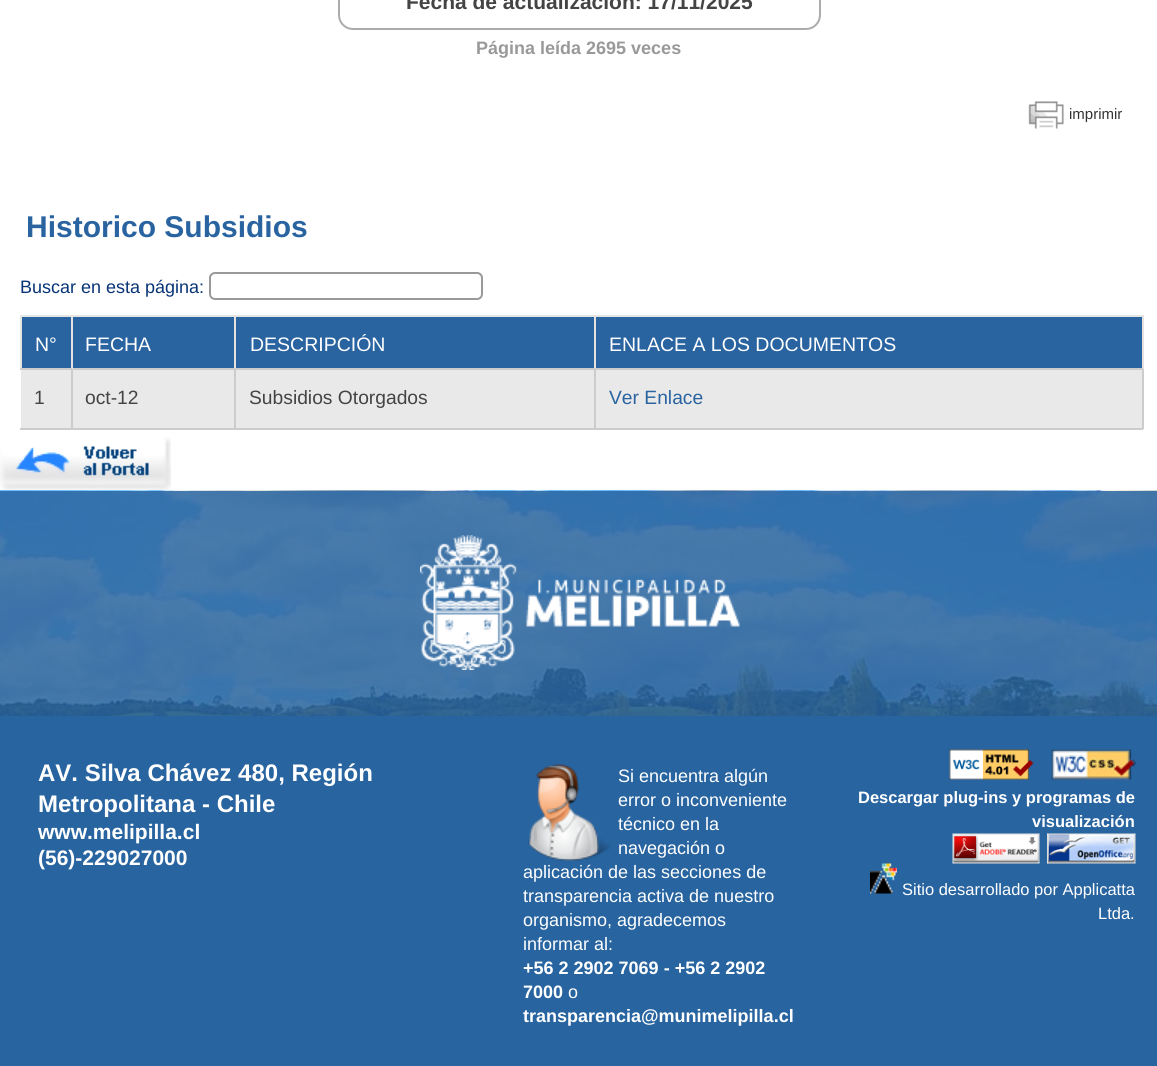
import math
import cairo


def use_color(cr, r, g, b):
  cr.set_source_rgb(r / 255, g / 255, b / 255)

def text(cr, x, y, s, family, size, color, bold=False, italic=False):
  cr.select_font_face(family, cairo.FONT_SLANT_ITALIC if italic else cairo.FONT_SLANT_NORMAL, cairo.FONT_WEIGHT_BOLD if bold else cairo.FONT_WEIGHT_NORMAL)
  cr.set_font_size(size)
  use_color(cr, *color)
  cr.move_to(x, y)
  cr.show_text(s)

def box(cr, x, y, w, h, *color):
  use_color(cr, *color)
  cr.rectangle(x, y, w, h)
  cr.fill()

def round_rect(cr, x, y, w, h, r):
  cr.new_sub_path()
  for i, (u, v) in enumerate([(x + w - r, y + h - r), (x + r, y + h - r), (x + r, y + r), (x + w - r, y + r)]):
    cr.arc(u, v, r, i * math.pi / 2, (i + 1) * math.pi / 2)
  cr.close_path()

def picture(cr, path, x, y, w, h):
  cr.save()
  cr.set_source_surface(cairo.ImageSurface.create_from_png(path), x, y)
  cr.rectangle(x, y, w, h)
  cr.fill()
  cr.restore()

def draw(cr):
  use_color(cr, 255, 255, 255)
  cr.paint()
  round_rect(cr, 339, -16, 481, 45, 14)
  use_color(cr, 172, 172, 172)
  cr.stroke()
  picture(cr, "img_01.png", 1028, 101, 36, 28)
  round_rect(cr, 210, 273, 272, 26, 5)
  use_color(cr, 153, 153, 153)
  cr.stroke()
  box(cr, 20, 315, 1123, 2, 229, 229, 228)
  box(cr, 20, 315, 2, 54, 229, 229, 228)
  box(cr, 22, 317, 49, 51, 41, 100, 161)
  box(cr, 20, 428, 1123, 2, 204, 204, 204)
  box(cr, 1142, 368, 2, 61, 204, 204, 204)
  box(cr, 1142, 315, 2, 54, 228, 225, 222)
  box(cr, 21, 370, 1121, 58, 233, 233, 233)
  box(cr, 594, 368, 2, 61, 204, 204, 204)
  box(cr, 594, 368, 549, 2, 204, 204, 204)
  box(cr, 594, 315, 2, 54, 228, 225, 222)
  box(cr, 234, 368, 2, 61, 204, 204, 204)
  box(cr, 234, 368, 362, 2, 204, 204, 204)
  box(cr, 234, 315, 2, 54, 228, 225, 222)
  box(cr, 71, 368, 2, 61, 204, 204, 204)
  box(cr, 71, 368, 165, 2, 204, 204, 204)
  box(cr, 71, 315, 2, 54, 228, 225, 222)
  box(cr, 20, 368, 52, 2, 204, 204, 204)
  box(cr, 73, 317, 161, 51, 41, 100, 161)
  box(cr, 236, 317, 358, 51, 41, 100, 161)
  box(cr, 596, 317, 546, 51, 41, 100, 161)
  picture(cr, "img_02.png", 0, 437, 171, 53)
  picture(cr, "img_03.png", 0, 490, 1157, 226)
  cr.set_source_rgba(0.157, 0.392, 0.627, 0.85)
  cr.rectangle(0, 491, 1157, 225)
  cr.fill()
  picture(cr, "img_04.png", 420, 535, 320, 135)
  box(cr, 0, 716, 1157, 350, 40, 100, 160)
  picture(cr, "img_05.png", 528, 764, 83, 97)
  picture(cr, "img_06.png", 949, 749, 85, 31)
  picture(cr, "img_07.png", 1051, 749, 85, 31)
  picture(cr, "img_08.png", 952, 833, 88, 31)
  picture(cr, "img_09.png", 1047, 833, 89, 31)
  picture(cr, "img_10.png", 870, 863, 27, 31)
  text(cr, 406, 9, "Fecha de actualización: 17/11/2025", "Liberation Sans", 21, (68, 68, 68), bold=True)
  text(cr, 476, 54, "Página leída 2695 veces", "Liberation Sans", 18, (153, 153, 153), bold=True)
  text(cr, 1069, 119, "imprimir", "Liberation Sans", 15, (51, 51, 51))
  text(cr, 26, 237, "Historico Subsidios", "Liberation Sans", 30, (41, 100, 161), bold=True)
  text(cr, 20, 293, "Buscar en esta página:", "Liberation Sans", 18, (8, 52, 118))
  text(cr, 35, 351, "N°", "Liberation Sans", 19.5, (255, 255, 255))
  text(cr, 85, 351, "FECHA", "Liberation Sans", 19.5, (255, 255, 255))
  text(cr, 250, 351, "DESCRIPCIÓN", "Liberation Sans", 19.5, (255, 255, 255))
  text(cr, 609, 351, "ENLACE A LOS DOCUMENTOS", "Liberation Sans", 19.5, (255, 255, 255))
  text(cr, 34, 404, "1", "Liberation Sans", 19.25, (68, 68, 68))
  text(cr, 85, 404, "oct-12", "Liberation Sans", 19.25, (68, 68, 68))
  text(cr, 249, 404, "Subsidios Otorgados", "Liberation Sans", 19.25, (68, 68, 68))
  text(cr, 609, 404, "Ver Enlace", "Liberation Sans", 19.25, (41, 100, 161))
  text(cr, 38, 781, "AV. Silva Chávez 480, Región", "Liberation Sans", 24, (255, 255, 255), bold=True)
  text(cr, 38, 812, "Metropolitana - Chile", "Liberation Sans", 24, (255, 255, 255), bold=True)
  text(cr, 38, 839, "www.melipilla.cl", "Liberation Sans", 21, (255, 255, 255), bold=True)
  text(cr, 38, 865, "(56)-229027000", "Liberation Sans", 21, (255, 255, 255), bold=True)
  text(cr, 618, 782, "Si encuentra algún", "Liberation Sans", 18, (255, 255, 255))
  text(cr, 618, 806, "error o inconveniente", "Liberation Sans", 18, (255, 255, 255))
  text(cr, 618, 830, "técnico en la", "Liberation Sans", 18, (255, 255, 255))
  text(cr, 618, 854, "navegación o", "Liberation Sans", 18, (255, 255, 255))
  text(cr, 523, 878, "aplicación de las secciones de", "Liberation Sans", 18, (255, 255, 255))
  text(cr, 523, 902, "transparencia activa de nuestro", "Liberation Sans", 18, (255, 255, 255))
  text(cr, 523, 926, "organismo, agradecemos", "Liberation Sans", 18, (255, 255, 255))
  text(cr, 523, 950, "informar al:", "Liberation Sans", 18, (255, 255, 255))
  text(cr, 523, 974, "+56 2 2902 7069 - +56 2 2902", "Liberation Sans", 18, (255, 255, 255), bold=True)
  text(cr, 523, 998, "7000", "Liberation Sans", 18, (255, 255, 255), bold=True)
  text(cr, 568, 998, "o", "Liberation Sans", 18, (255, 255, 255))
  text(cr, 523, 1022, "transparencia@munimelipilla.cl", "Liberation Sans", 18, (255, 255, 255), bold=True)
  text(cr, 858, 803, "Descargar plug-ins y programas de", "Liberation Sans", 16.5, (255, 255, 255), bold=True)
  text(cr, 1032, 827, "visualización", "Liberation Sans", 16.5, (255, 255, 255), bold=True)
  text(cr, 902, 895, "Sitio desarrollado por Applicatta", "Liberation Sans", 16.5, (255, 255, 255))
  text(cr, 1098, 919, "Ltda.", "Liberation Sans", 16.5, (255, 255, 255))


surface = cairo.ImageSurface(cairo.FORMAT_RGB24, 1157, 1066)
cr = cairo.Context(surface)
options = cairo.FontOptions()
options.set_hint_metrics(cairo.HINT_METRICS_OFF)
options.set_hint_style(cairo.HINT_STYLE_NONE)
cr.set_font_options(options)
cr.set_miter_limit(4)
draw(cr)
surface.write_to_png("out.png")
